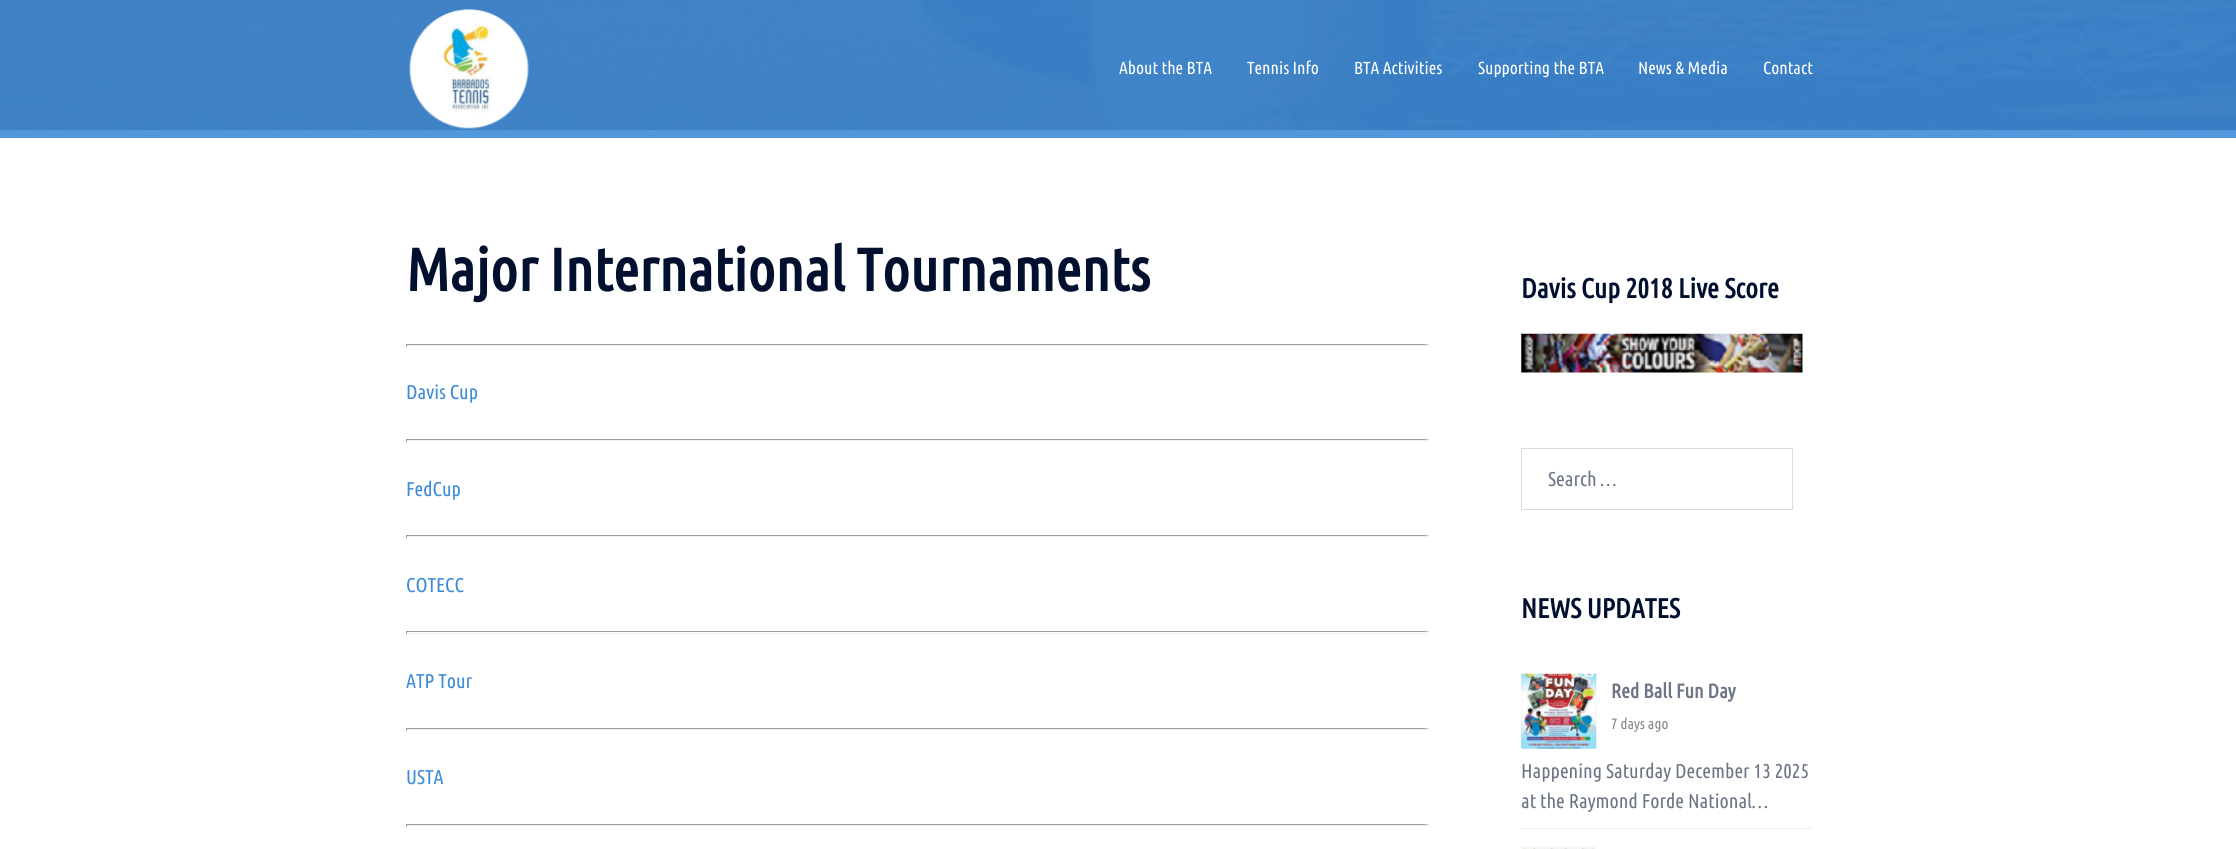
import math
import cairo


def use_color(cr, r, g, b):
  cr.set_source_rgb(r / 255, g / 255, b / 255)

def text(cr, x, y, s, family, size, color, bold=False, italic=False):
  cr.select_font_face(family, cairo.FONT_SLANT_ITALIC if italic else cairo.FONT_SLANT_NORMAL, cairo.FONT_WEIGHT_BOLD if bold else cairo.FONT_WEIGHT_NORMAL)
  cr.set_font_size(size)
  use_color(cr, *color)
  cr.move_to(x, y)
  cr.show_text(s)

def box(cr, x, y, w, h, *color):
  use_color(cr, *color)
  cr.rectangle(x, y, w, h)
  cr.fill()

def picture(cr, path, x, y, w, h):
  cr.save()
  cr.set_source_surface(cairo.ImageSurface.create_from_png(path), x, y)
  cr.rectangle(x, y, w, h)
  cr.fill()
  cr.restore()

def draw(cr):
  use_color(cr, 255, 255, 255)
  cr.paint()
  box(cr, 0, 130, 2236, 8, 81, 151, 220)
  picture(cr, "img_01.png", 0, 0, 2236, 130)
  picture(cr, "img_02.png", 409, 9, 120, 120)
  box(cr, 406, 344, 1022, 1, 159, 159, 159)
  box(cr, 1426, 344, 1, 3, 238, 238, 238)
  box(cr, 406, 345, 1022, 1, 238, 238, 238)
  box(cr, 406, 344, 1, 3, 159, 159, 159)
  box(cr, 406, 439, 1022, 1, 159, 159, 159)
  box(cr, 1426, 439, 1, 3, 238, 238, 238)
  box(cr, 406, 440, 1022, 1, 238, 238, 238)
  box(cr, 406, 439, 1, 3, 159, 159, 159)
  box(cr, 406, 535, 1022, 1, 159, 159, 159)
  box(cr, 1426, 535, 1, 3, 238, 238, 238)
  box(cr, 406, 536, 1022, 1, 238, 238, 238)
  box(cr, 406, 535, 1, 3, 159, 159, 159)
  box(cr, 406, 631, 1022, 1, 159, 159, 159)
  box(cr, 1426, 631, 1, 3, 238, 238, 238)
  box(cr, 406, 633, 1022, 1, 238, 238, 238)
  box(cr, 406, 631, 1, 3, 159, 159, 159)
  box(cr, 406, 728, 1022, 1, 159, 159, 159)
  box(cr, 1426, 728, 1, 3, 238, 238, 238)
  box(cr, 406, 729, 1022, 1, 238, 238, 238)
  box(cr, 406, 728, 1, 3, 159, 159, 159)
  box(cr, 406, 824, 1022, 1, 159, 159, 159)
  box(cr, 1426, 824, 1, 3, 238, 238, 238)
  box(cr, 406, 825, 1022, 1, 238, 238, 238)
  box(cr, 406, 824, 1, 3, 159, 159, 159)
  picture(cr, "img_03.png", 1521, 333, 282, 40)
  cr.rectangle(1521.5, 448.5, 271, 61)
  use_color(cr, 219, 219, 219)
  cr.set_line_width(1)
  cr.stroke()
  box(cr, 1521, 828, 292, 1, 240, 240, 240)
  picture(cr, "img_04.png", 1521, 673, 76, 76)
  picture(cr, "img_05.png", 1521, 847, 75, 2)
  text(cr, 1119, 74, "About the BTA", "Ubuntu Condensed", 17.5, (255, 255, 255))
  text(cr, 1247, 74, "Tennis Info", "Ubuntu Condensed", 17.5, (255, 255, 255))
  text(cr, 1354, 74, "BTA Activities", "Ubuntu Condensed", 17.5, (255, 255, 255))
  text(cr, 1478, 74, "Supporting the BTA", "Ubuntu Condensed", 17.5, (255, 255, 255))
  text(cr, 1638, 74, "News & Media", "Ubuntu Condensed", 17.5, (255, 255, 255))
  text(cr, 1763, 74, "Contact", "Ubuntu Condensed", 17.5, (255, 255, 255))
  text(cr, 406, 291, "Major International Tournaments", "Ubuntu Condensed", 60, (0, 16, 46), bold=True)
  text(cr, 406, 399, "Davis Cup", "Ubuntu Condensed", 20, (62, 139, 216))
  text(cr, 406, 496, "FedCup", "Ubuntu Condensed", 20, (62, 139, 216))
  text(cr, 406, 592, "COTECC", "Ubuntu Condensed", 20, (62, 139, 216))
  text(cr, 406, 688, "ATP Tour", "Ubuntu Condensed", 20, (62, 139, 216))
  text(cr, 406, 784, "USTA", "Ubuntu Condensed", 20, (62, 139, 216))
  text(cr, 1521, 298, "Davis Cup 2018 Live Score", "Ubuntu Condensed", 27.5, (0, 16, 46), bold=True)
  text(cr, 1548, 486, "Search …", "Ubuntu Condensed", 20, (109, 118, 133))
  text(cr, 1521, 618, "NEWS UPDATES", "Ubuntu Condensed", 27.5, (0, 16, 46), bold=True)
  text(cr, 1611, 698, "Red Ball Fun Day", "Ubuntu Condensed", 20, (109, 118, 133), bold=True)
  text(cr, 1611, 729, "7 days ago", "Ubuntu Condensed", 15, (136, 136, 136))
  text(cr, 1521, 778, "Happening Saturday December 13 2025", "Ubuntu Condensed", 20, (109, 118, 133))
  text(cr, 1521, 808, "at the Raymond Forde National…", "Ubuntu Condensed", 20, (109, 118, 133))


surface = cairo.ImageSurface(cairo.FORMAT_RGB24, 2236, 849)
cr = cairo.Context(surface)
options = cairo.FontOptions()
options.set_hint_metrics(cairo.HINT_METRICS_OFF)
options.set_hint_style(cairo.HINT_STYLE_NONE)
cr.set_font_options(options)
cr.set_miter_limit(4)
draw(cr)
surface.write_to_png("out.png")
